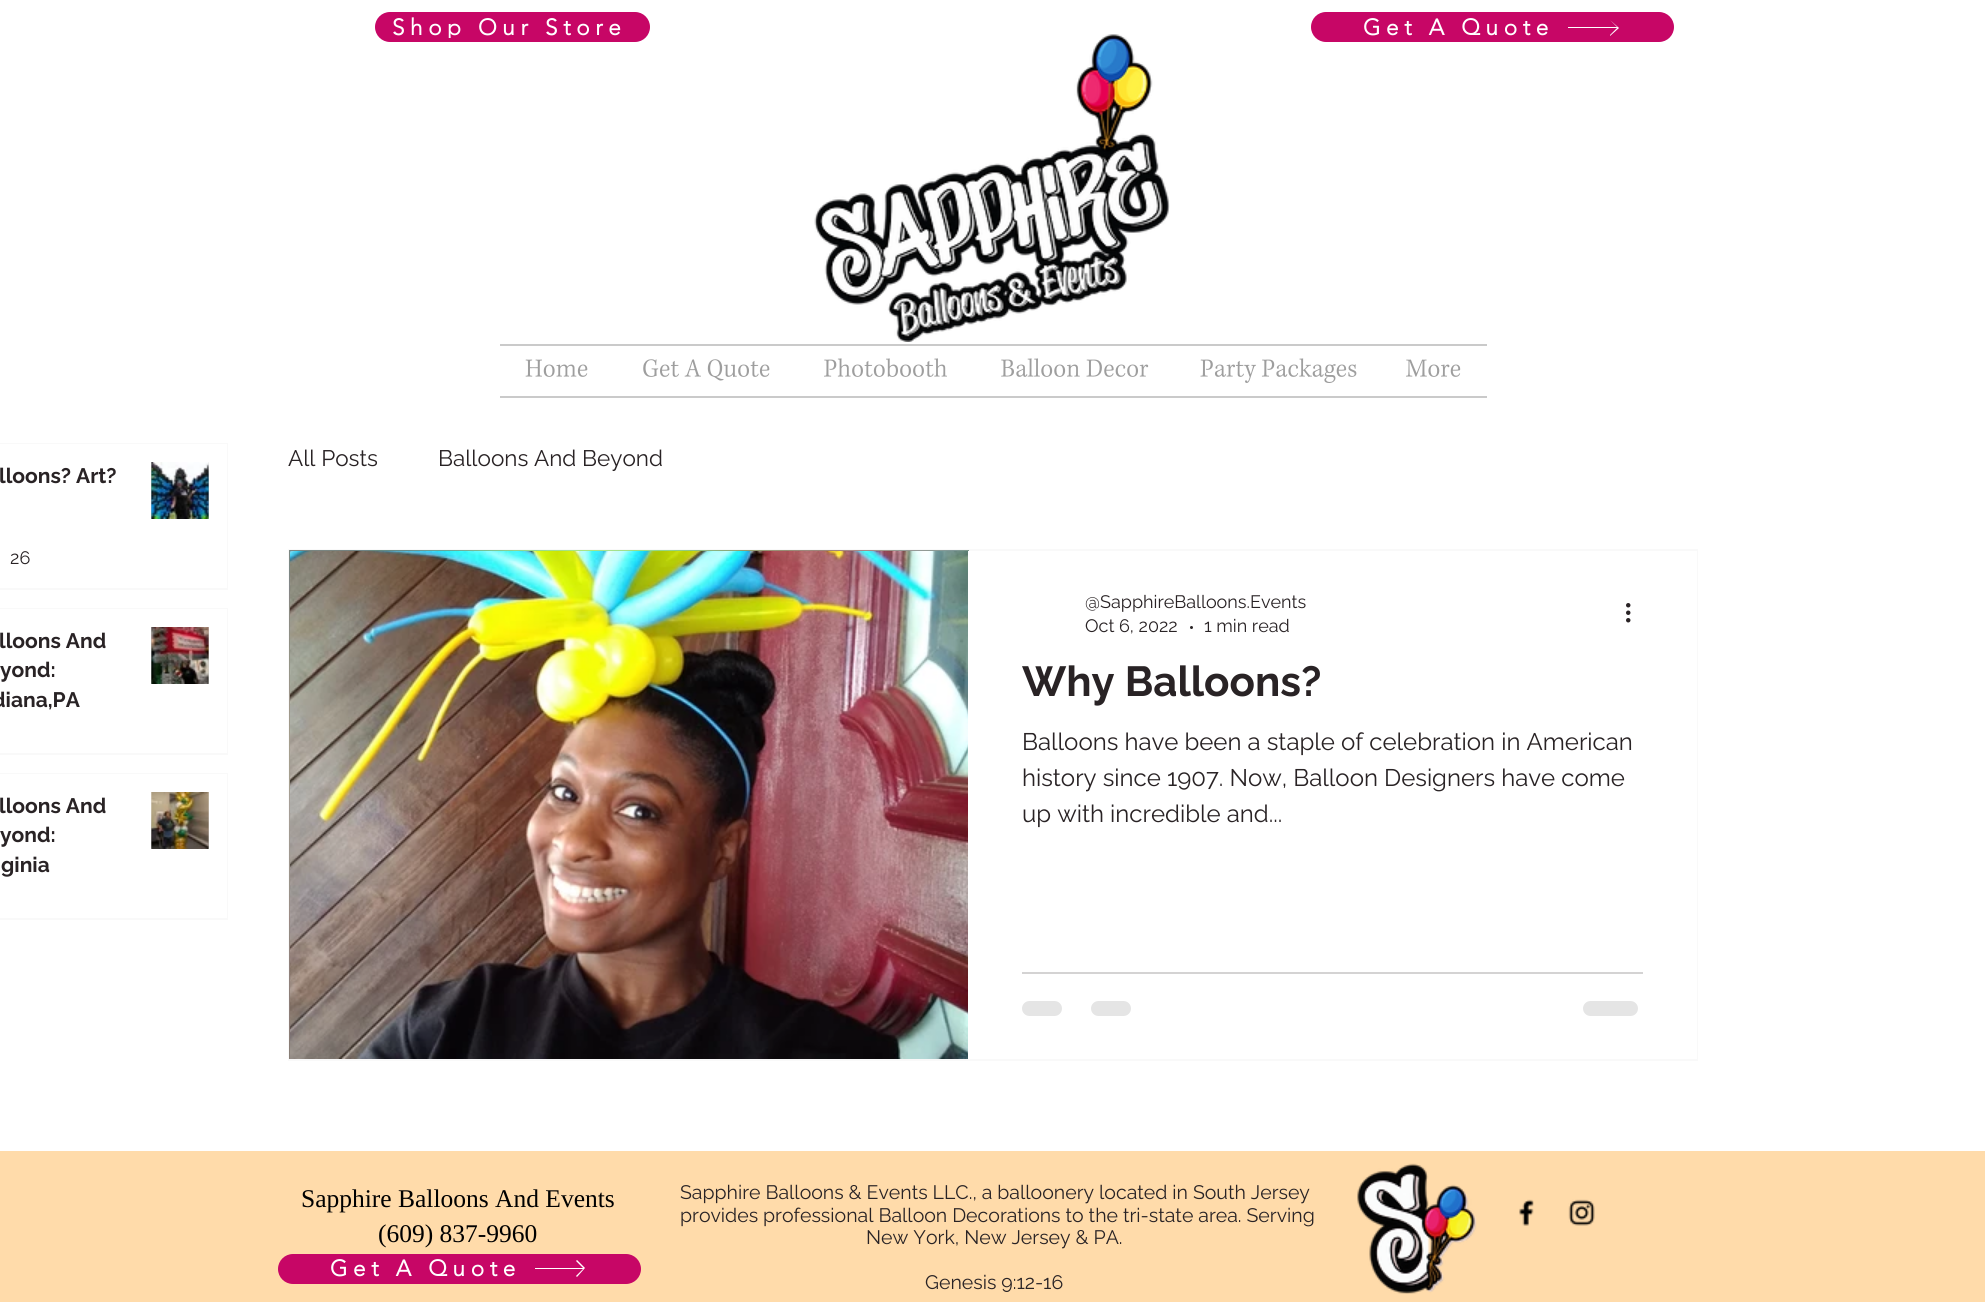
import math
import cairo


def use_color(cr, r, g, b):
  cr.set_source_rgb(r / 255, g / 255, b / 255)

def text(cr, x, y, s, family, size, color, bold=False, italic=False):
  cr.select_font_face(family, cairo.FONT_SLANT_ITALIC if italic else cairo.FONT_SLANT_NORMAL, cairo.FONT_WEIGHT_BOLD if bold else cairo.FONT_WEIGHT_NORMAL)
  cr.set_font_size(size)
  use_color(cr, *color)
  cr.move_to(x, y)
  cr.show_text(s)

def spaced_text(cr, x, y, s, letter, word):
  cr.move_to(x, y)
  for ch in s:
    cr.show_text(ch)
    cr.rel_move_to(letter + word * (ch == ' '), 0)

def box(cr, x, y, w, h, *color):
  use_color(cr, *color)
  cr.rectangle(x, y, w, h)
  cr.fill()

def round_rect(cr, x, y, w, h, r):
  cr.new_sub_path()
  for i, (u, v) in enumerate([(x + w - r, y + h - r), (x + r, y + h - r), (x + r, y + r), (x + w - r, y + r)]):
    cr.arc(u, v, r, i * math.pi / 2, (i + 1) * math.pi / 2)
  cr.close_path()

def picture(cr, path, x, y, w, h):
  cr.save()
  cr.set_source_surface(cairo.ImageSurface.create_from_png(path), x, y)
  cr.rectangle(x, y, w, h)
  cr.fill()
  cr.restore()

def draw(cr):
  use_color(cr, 255, 255, 255)
  cr.paint()
  use_color(cr, 199, 6, 102)
  round_rect(cr, 375, 12, 275, 30, 15)
  cr.fill()
  round_rect(cr, 1311, 12, 363, 30, 15)
  cr.fill()
  use_color(cr, 255, 255, 255)
  cr.new_path()
  cr.move_to(1610, 20)
  cr.line_to(1617, 27)
  cr.line_to(1568, 27)
  cr.line_to(1568, 28)
  cr.line_to(1617, 28)
  cr.line_to(1610, 35)
  cr.line_to(1610, 36)
  cr.line_to(1619, 28)
  cr.close_path()
  cr.fill()
  picture(cr, "img_01.png", 814, 34, 356, 308)
  box(cr, 500, 344, 987, 2, 202, 202, 202)
  box(cr, 500, 396, 987, 2, 202, 202, 202)
  picture(cr, "img_02.png", 525, 359, 63, 18)
  picture(cr, "img_03.png", 643, 359, 127, 22)
  picture(cr, "img_04.png", 824, 358, 123, 19)
  picture(cr, "img_05.png", 1001, 358, 148, 19)
  picture(cr, "img_06.png", 1200, 358, 157, 25)
  picture(cr, "img_07.png", 1406, 359, 55, 18)
  cr.rectangle(-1, 444, 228, 145)
  use_color(cr, 249, 249, 249)
  cr.stroke()
  box(cr, 0, 444, 227, 144, 255, 255, 255)
  picture(cr, "img_08.png", 151, 462, 58, 57)
  picture(cr, "img_09.png", 151, 462, 58, 57)
  cr.rectangle(-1, 609, 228, 145)
  use_color(cr, 249, 249, 249)
  cr.stroke()
  box(cr, 0, 609, 227, 144, 255, 255, 255)
  picture(cr, "img_10.png", 151, 627, 58, 57)
  picture(cr, "img_11.png", 151, 627, 58, 57)
  cr.rectangle(-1, 774, 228, 145)
  use_color(cr, 249, 249, 249)
  cr.stroke()
  box(cr, 0, 774, 227, 144, 255, 255, 255)
  picture(cr, "img_12.png", 151, 792, 58, 57)
  picture(cr, "img_13.png", 151, 792, 58, 57)
  cr.rectangle(289, 550, 1408, 510)
  use_color(cr, 249, 249, 249)
  cr.stroke()
  picture(cr, "img_14.png", 289, 550, 680, 509)
  picture(cr, "img_15.png", 290, 551, 678, 508)
  box(cr, 968, 551, 729, 508, 255, 255, 255)
  use_color(cr, 41, 35, 37)
  cr.arc(1191.5, 627.5, 1.5, 0, 2 * math.pi)
  cr.fill()
  picture(cr, "img_16.png", 1626, 603, 5, 20)
  box(cr, 1022, 972, 621, 2, 212, 211, 211)
  use_color(cr, 229, 229, 229)
  round_rect(cr, 1022, 1001, 40, 15, 7.5)
  cr.fill()
  round_rect(cr, 1091, 1001, 40, 15, 7.5)
  cr.fill()
  round_rect(cr, 1583, 1001, 55, 15, 7.5)
  cr.fill()
  box(cr, 0, 1151, 1985, 151, 255, 219, 170)
  picture(cr, "img_17.png", 1519, 1199, 15, 27)
  picture(cr, "img_18.png", 1568, 1199, 27, 27)
  picture(cr, "img_19.png", 1357, 1163, 120, 131)
  use_color(cr, 199, 6, 102)
  round_rect(cr, 278, 1254, 363, 30, 15)
  cr.fill()
  use_color(cr, 255, 255, 255)
  cr.new_path()
  cr.move_to(577, 1260)
  cr.line_to(576, 1261)
  cr.line_to(583, 1268)
  cr.line_to(535, 1268)
  cr.line_to(535, 1269)
  cr.line_to(583, 1269)
  cr.line_to(576, 1276)
  cr.line_to(577, 1277)
  cr.line_to(585, 1268)
  cr.close_path()
  cr.fill()
  cr.save()
  cr.rectangle(392, 17, 235, 21)
  cr.clip()
  cr.select_font_face("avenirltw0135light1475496", cairo.FONT_SLANT_NORMAL, cairo.FONT_WEIGHT_BOLD)
  cr.set_font_size(22.5)
  spaced_text(cr, 392, 35, "Shop Our Store", 5.6, 0)
  cr.restore()
  cr.select_font_face("avenirltw0135light1475496", cairo.FONT_SLANT_NORMAL, cairo.FONT_WEIGHT_BOLD)
  cr.set_font_size(22.5)
  spaced_text(cr, 1363, 35, "Get A Quote", 5.6, 0)
  text(cr, -1, 483, "lloons? Art?", "Raleway", 21, (41, 35, 37), bold=True)
  text(cr, 10, 564, "26", "Raleway", 18, (41, 35, 37))
  text(cr, -1, 648, "lloons And", "Raleway", 21, (41, 35, 37), bold=True)
  text(cr, 0, 677, "yond:", "Raleway", 21, (41, 35, 37), bold=True)
  text(cr, -8, 707, "diana,PA", "Raleway", 21, (41, 35, 37), bold=True)
  text(cr, -1, 813, "lloons And", "Raleway", 21, (41, 35, 37), bold=True)
  text(cr, 0, 842, "yond:", "Raleway", 21, (41, 35, 37), bold=True)
  text(cr, 1, 872, "ginia", "Raleway", 21, (41, 35, 37), bold=True)
  text(cr, 288, 466, "All Posts", "Raleway", 22.5, (41, 35, 37))
  text(cr, 438, 466, "Balloons And Beyond", "Raleway", 22.5, (41, 35, 37))
  text(cr, 1085, 608, "@SapphireBalloons.Events", "Raleway", 18, (41, 35, 37))
  text(cr, 1085, 632, "Oct 6, 2022", "Raleway", 18, (41, 35, 37))
  text(cr, 1204, 632, "1 min read", "Raleway", 18, (41, 35, 37))
  text(cr, 1022, 696, "Why Balloons?", "Raleway", 42, (41, 35, 37), bold=True)
  text(cr, 1022, 750, "Balloons have been a staple of celebration in American", "Raleway", 24, (41, 35, 37))
  text(cr, 1022, 786, "history since 1907. Now, Balloon Designers have come", "Raleway", 24, (41, 35, 37))
  text(cr, 1022, 822, "up with incredible and...", "Raleway", 24, (41, 35, 37))
  text(cr, 301, 1207, "Sapphire Balloons And Events", "Liberation Serif", 25.5, (0, 0, 0))
  text(cr, 378, 1242, "(609) 837-9960", "Liberation Serif", 25.5, (0, 0, 0))
  text(cr, 680, 1199, "Sapphire Balloons & Events LLC., a balloonery located in South Jersey", "Raleway", 19.5, (41, 35, 37))
  text(cr, 680, 1222, "provides professional Balloon Decorations to the tri-state area. Serving", "Raleway", 19.5, (41, 35, 37))
  text(cr, 866, 1244, "New York, New Jersey & PA.", "Raleway", 19.5, (41, 35, 37))
  text(cr, 925, 1289, "Genesis 9:12-16", "Raleway", 19.5, (41, 35, 37))
  cr.select_font_face("avenirltw0135light1475496", cairo.FONT_SLANT_NORMAL, cairo.FONT_WEIGHT_BOLD)
  cr.set_font_size(22.5)
  use_color(cr, 255, 255, 255)
  spaced_text(cr, 330, 1276, "Get A Quote", 5.6, 0)


surface = cairo.ImageSurface(cairo.FORMAT_RGB24, 1985, 1302)
cr = cairo.Context(surface)
options = cairo.FontOptions()
options.set_hint_metrics(cairo.HINT_METRICS_OFF)
options.set_hint_style(cairo.HINT_STYLE_NONE)
cr.set_font_options(options)
cr.set_miter_limit(4)
draw(cr)
surface.write_to_png("out.png")
